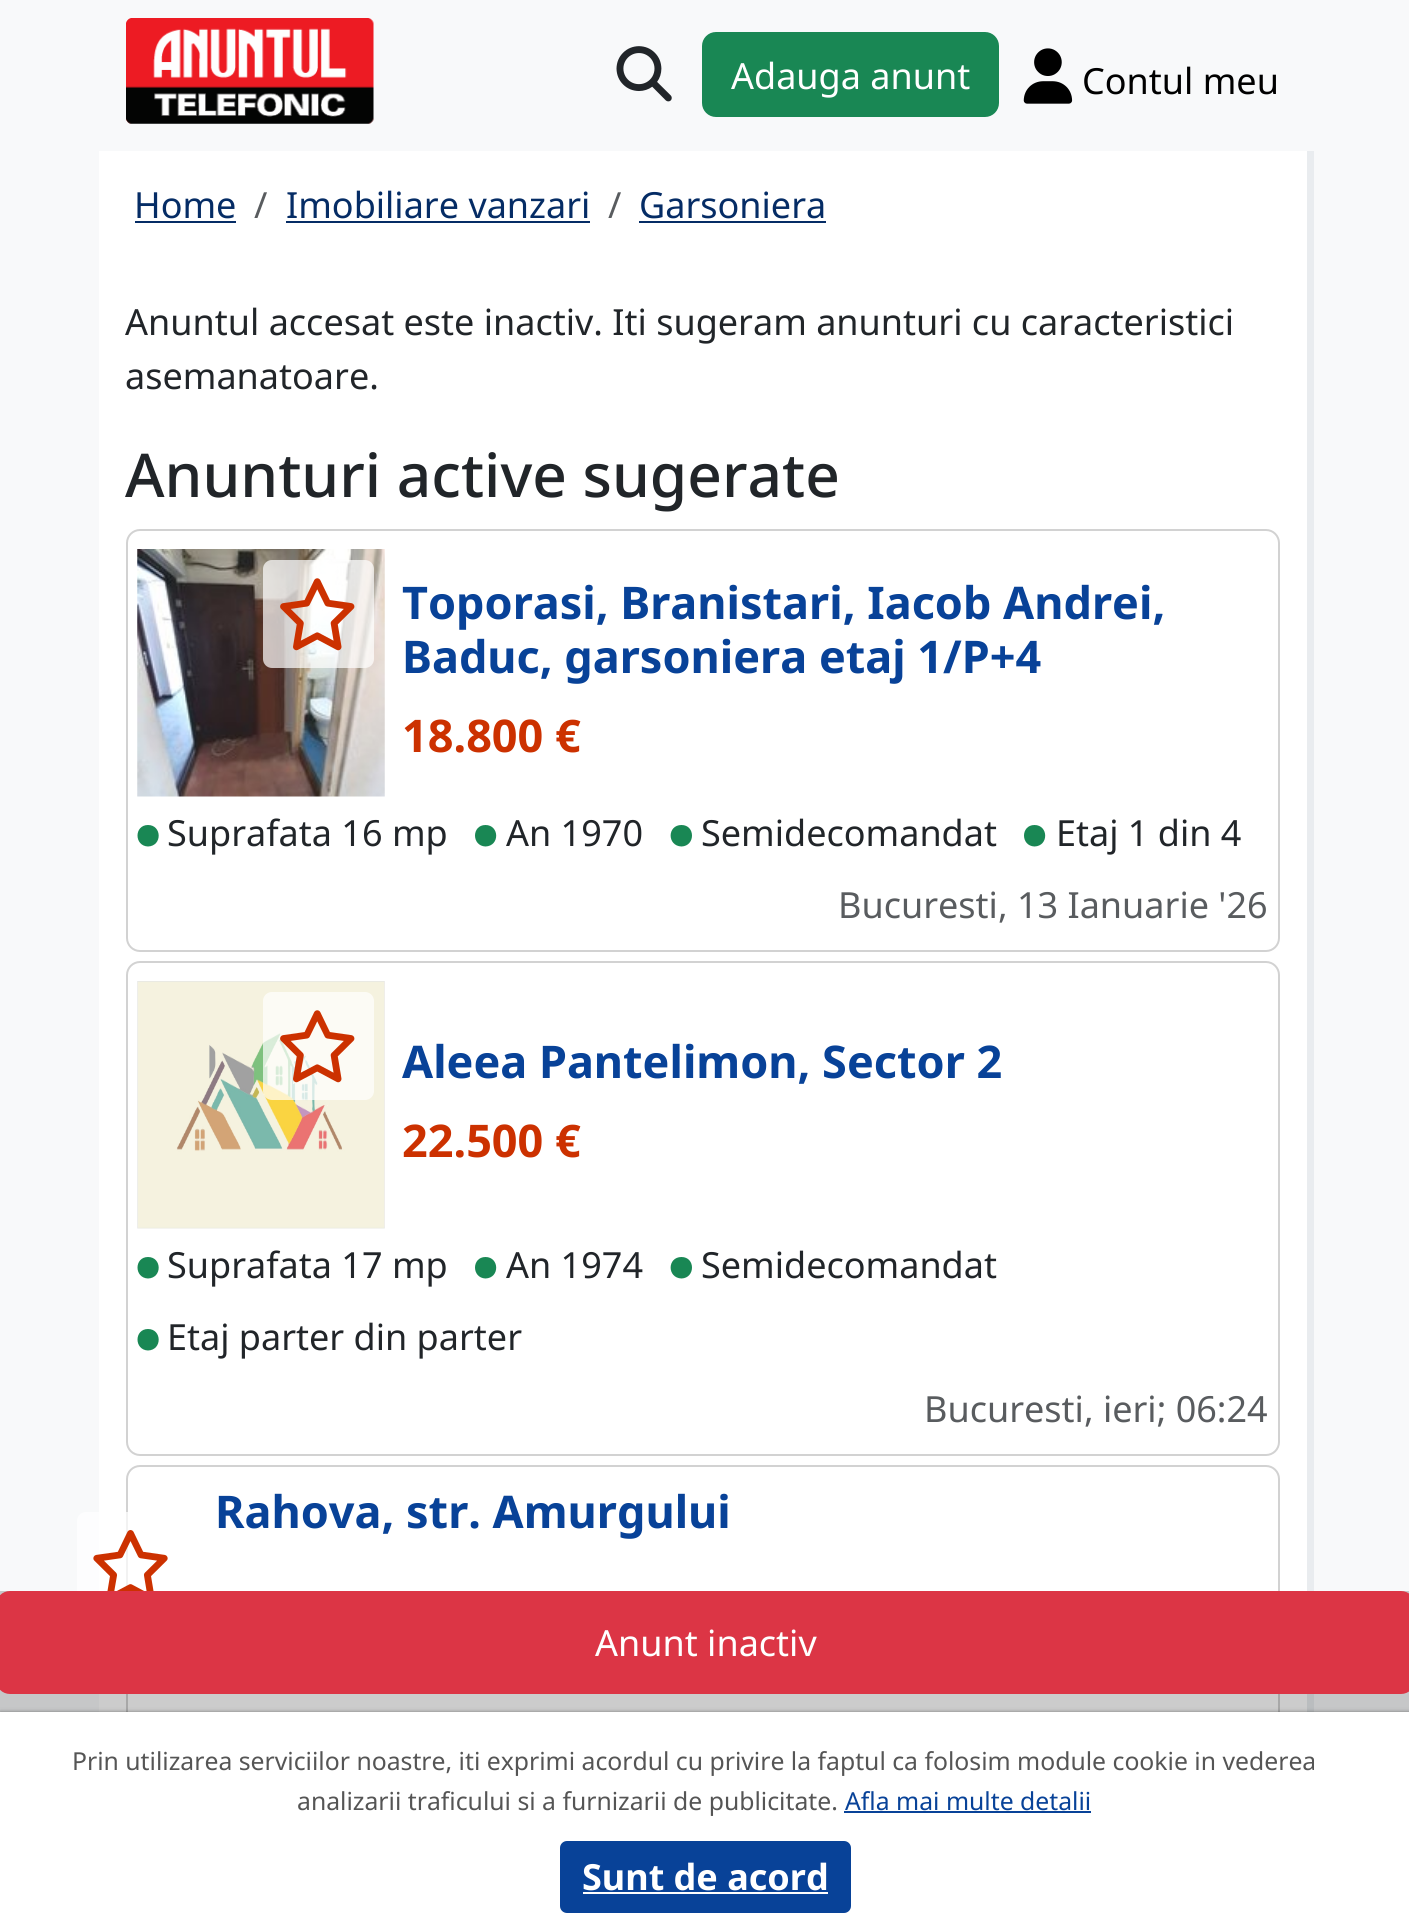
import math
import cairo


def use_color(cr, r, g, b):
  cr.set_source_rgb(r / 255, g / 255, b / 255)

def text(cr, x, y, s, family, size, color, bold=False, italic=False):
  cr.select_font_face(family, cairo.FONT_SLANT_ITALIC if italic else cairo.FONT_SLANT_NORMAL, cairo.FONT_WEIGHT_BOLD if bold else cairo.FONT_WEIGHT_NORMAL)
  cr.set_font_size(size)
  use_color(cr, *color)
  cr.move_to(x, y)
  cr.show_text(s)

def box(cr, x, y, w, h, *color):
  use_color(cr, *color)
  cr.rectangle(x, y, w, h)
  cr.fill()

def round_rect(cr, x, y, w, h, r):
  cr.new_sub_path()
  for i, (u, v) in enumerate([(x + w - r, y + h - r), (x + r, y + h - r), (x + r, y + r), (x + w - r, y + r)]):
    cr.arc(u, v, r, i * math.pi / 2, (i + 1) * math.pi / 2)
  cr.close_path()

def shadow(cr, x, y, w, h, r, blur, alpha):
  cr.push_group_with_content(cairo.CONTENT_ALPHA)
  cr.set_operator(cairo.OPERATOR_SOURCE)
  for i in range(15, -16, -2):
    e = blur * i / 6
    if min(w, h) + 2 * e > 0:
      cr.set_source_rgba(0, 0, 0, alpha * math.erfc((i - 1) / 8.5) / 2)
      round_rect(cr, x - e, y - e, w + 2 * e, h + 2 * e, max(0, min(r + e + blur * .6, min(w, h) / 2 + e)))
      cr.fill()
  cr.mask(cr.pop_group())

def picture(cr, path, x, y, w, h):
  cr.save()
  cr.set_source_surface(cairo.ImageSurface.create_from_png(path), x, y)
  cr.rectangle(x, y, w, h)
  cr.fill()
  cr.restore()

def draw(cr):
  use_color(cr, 248, 249, 250)
  cr.paint()
  picture(cr, "img_01.png", 126, 18, 248, 106)
  picture(cr, "img_02.png", 616, 46, 56, 56)
  use_color(cr, 25, 135, 84)
  round_rect(cr, 703, 33, 295, 83, 13)
  cr.fill_preserve()
  cr.stroke()
  picture(cr, "img_03.png", 1023, 48, 50, 56)
  box(cr, 99, 151, 1208, 1561, 255, 255, 255)
  box(cr, 1307, 151, 7, 1561, 233, 236, 239)
  box(cr, 135, 221, 101, 2, 5, 44, 101)
  box(cr, 286, 221, 304, 2, 5, 44, 101)
  box(cr, 639, 221, 187, 2, 5, 44, 101)
  round_rect(cr, 127, 530, 1152, 421, 13)
  use_color(cr, 210, 210, 210)
  cr.stroke()
  picture(cr, "img_04.png", 137, 549, 248, 248)
  cr.set_source_rgba(1, 1, 1, 0.7)
  round_rect(cr, 263, 560, 111, 108, 9)
  cr.fill()
  picture(cr, "img_05.png", 280, 578, 75, 73)
  use_color(cr, 25, 135, 84)
  cr.new_path()
  cr.move_to(148, 846.5)
  cr.curve_to(162.5, 846, 162, 825, 148, 825)
  cr.curve_to(134, 825, 134, 846, 148, 846.5)
  cr.close_path()
  cr.fill()
  cr.new_path()
  cr.move_to(485.5, 846.5)
  cr.curve_to(500, 846, 499.5, 825, 485.5, 825)
  cr.curve_to(471.5, 825, 471.5, 846, 485.5, 846.5)
  cr.close_path()
  cr.fill()
  cr.new_path()
  cr.move_to(681.5, 846.5)
  cr.curve_to(695.5, 846, 695.5, 825, 681.5, 825)
  cr.curve_to(667, 825, 667, 846, 681.5, 846.5)
  cr.close_path()
  cr.fill()
  cr.new_path()
  cr.move_to(1034.5, 846.5)
  cr.curve_to(1049, 846, 1048.5, 825, 1034.5, 825)
  cr.curve_to(1020.5, 825, 1020.5, 846, 1034.5, 846.5)
  cr.close_path()
  cr.fill()
  round_rect(cr, 127, 962, 1152, 493, 13)
  use_color(cr, 210, 210, 210)
  cr.stroke()
  picture(cr, "img_06.png", 137, 981, 248, 248)
  cr.set_source_rgba(1, 1, 1, 0.7)
  round_rect(cr, 263, 992, 111, 108, 9)
  cr.fill()
  picture(cr, "img_07.png", 280, 1010, 75, 73)
  use_color(cr, 25, 135, 84)
  cr.new_path()
  cr.move_to(148, 1278.5)
  cr.curve_to(162.5, 1278, 162, 1257, 148, 1257)
  cr.curve_to(134, 1257, 134, 1278, 148, 1278.5)
  cr.close_path()
  cr.fill()
  cr.new_path()
  cr.move_to(485.5, 1278.5)
  cr.curve_to(500, 1278, 499.5, 1257, 485.5, 1257)
  cr.curve_to(471.5, 1257, 471.5, 1278, 485.5, 1278.5)
  cr.close_path()
  cr.fill()
  cr.new_path()
  cr.move_to(681.5, 1278.5)
  cr.curve_to(695.5, 1278, 695.5, 1257, 681.5, 1257)
  cr.curve_to(667, 1257, 667, 1278, 681.5, 1278.5)
  cr.close_path()
  cr.fill()
  cr.new_path()
  cr.move_to(148, 1350.5)
  cr.curve_to(162.5, 1350, 162, 1329, 148, 1329)
  cr.curve_to(134, 1329, 134, 1350, 148, 1350.5)
  cr.close_path()
  cr.fill()
  round_rect(cr, 127, 1466, 1152, 313, 13)
  use_color(cr, 210, 210, 210)
  cr.stroke()
  cr.set_source_rgba(1, 1, 1, 0.7)
  round_rect(cr, 77, 1512, 108, 108, 9)
  cr.fill()
  picture(cr, "img_08.png", 93, 1530, 75, 61)
  cr.set_source_rgba(0, 0, 0, 0.2)
  cr.rectangle(0, 1591, 1409, 121)
  cr.fill()
  use_color(cr, 220, 53, 69)
  round_rect(cr, -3, 1592, 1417, 101, 13)
  cr.fill_preserve()
  cr.stroke()
  use_color(cr, 0, 0, 0)
  shadow(cr, 0, 1712, 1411, 205, 0, 2, 0.4)
  box(cr, 0, 1712, 1409, 214, 255, 255, 255)
  box(cr, 844, 1811, 247, 2, 8, 66, 152)
  round_rect(cr, 560, 1841, 291, 72, 7)
  cr.fill()
  box(cr, 583, 1892, 245, 2, 255, 255, 255)
  text(cr, 731, 89, "Adauga anunt", "Noto Sans", 36, (255, 255, 255))
  text(cr, 1082, 94, "Contul meu", "Noto Sans", 36, (0, 0, 0))
  text(cr, 134, 218, "Home", "Noto Sans", 36, (5, 44, 101))
  text(cr, 254, 218, "/", "Noto Sans", 36, (89, 92, 95))
  text(cr, 286, 218, "Imobiliare vanzari", "Noto Sans", 36, (5, 44, 101))
  text(cr, 608, 218, "/", "Noto Sans", 36, (89, 92, 95))
  text(cr, 639, 218, "Garsoniera", "Noto Sans", 36, (5, 44, 101))
  text(cr, 125, 335, "Anuntul accesat este inactiv. Iti sugeram anunturi cu caracteristici", "Noto Sans", 36, (33, 37, 41))
  text(cr, 125, 389, "asemanatoare.", "Noto Sans", 36, (33, 37, 41))
  text(cr, 125, 497, "Anunturi active sugerate", "Noto Sans Medium", 60.4, (33, 37, 41))
  text(cr, 402, 619, "Toporasi, Branistari, Iacob Andrei,", "Noto Sans", 45, (8, 66, 152), bold=True)
  text(cr, 402, 673, "Baduc, garsoniera etaj 1/P+4", "Noto Sans", 45, (8, 66, 152), bold=True)
  text(cr, 402, 752, "18.800 €", "Noto Sans", 45, (204, 49, 0), bold=True)
  text(cr, 167, 846, "Suprafata 16 mp", "Noto Sans", 36, (33, 37, 41))
  text(cr, 506, 846, "An 1970", "Noto Sans", 36, (33, 37, 41))
  text(cr, 701, 846, "Semidecomandat", "Noto Sans", 36, (33, 37, 41))
  text(cr, 1056, 846, "Etaj 1 din 4", "Noto Sans", 36, (33, 37, 41))
  text(cr, 838, 918, "Bucuresti, 13 Ianuarie '26", "Noto Sans", 36, (89, 92, 95))
  text(cr, 402, 1078, "Aleea Pantelimon, Sector 2", "Noto Sans", 45, (8, 66, 152), bold=True)
  text(cr, 402, 1157, "22.500 €", "Noto Sans", 45, (204, 49, 0), bold=True)
  text(cr, 167, 1278, "Suprafata 17 mp", "Noto Sans", 36, (33, 37, 41))
  text(cr, 506, 1278, "An 1974", "Noto Sans", 36, (33, 37, 41))
  text(cr, 701, 1278, "Semidecomandat", "Noto Sans", 36, (33, 37, 41))
  text(cr, 167, 1350, "Etaj parter din parter", "Noto Sans", 36, (33, 37, 41))
  text(cr, 924, 1422, "Bucuresti, ieri; 06:24", "Noto Sans", 36, (89, 92, 95))
  text(cr, 215, 1528, "Rahova, str. Amurgului", "Noto Sans", 45, (8, 66, 152), bold=True)
  text(cr, 595, 1656, "Anunt inactiv", "Noto Sans", 36, (255, 255, 255))
  text(cr, 72, 1770, "Prin utilizarea serviciilor noastre, iti exprimi acordul cu privire la faptul ca folosim module cookie in vederea", "Noto Sans", 24.75, (85, 85, 85))
  text(cr, 297, 1810, "analizarii traficului si a furnizarii de publicitate.", "Noto Sans", 24.75, (85, 85, 85))
  text(cr, 845, 1810, "Afla mai multe detalii", "Noto Sans", 24.75, (8, 66, 152))
  text(cr, 582, 1890, "Sunt de acord", "Noto Sans", 36, (255, 255, 255), bold=True)


surface = cairo.ImageSurface(cairo.FORMAT_RGB24, 1409, 1926)
cr = cairo.Context(surface)
options = cairo.FontOptions()
options.set_hint_metrics(cairo.HINT_METRICS_OFF)
options.set_hint_style(cairo.HINT_STYLE_NONE)
cr.set_font_options(options)
cr.set_miter_limit(4)
draw(cr)
surface.write_to_png("out.png")
